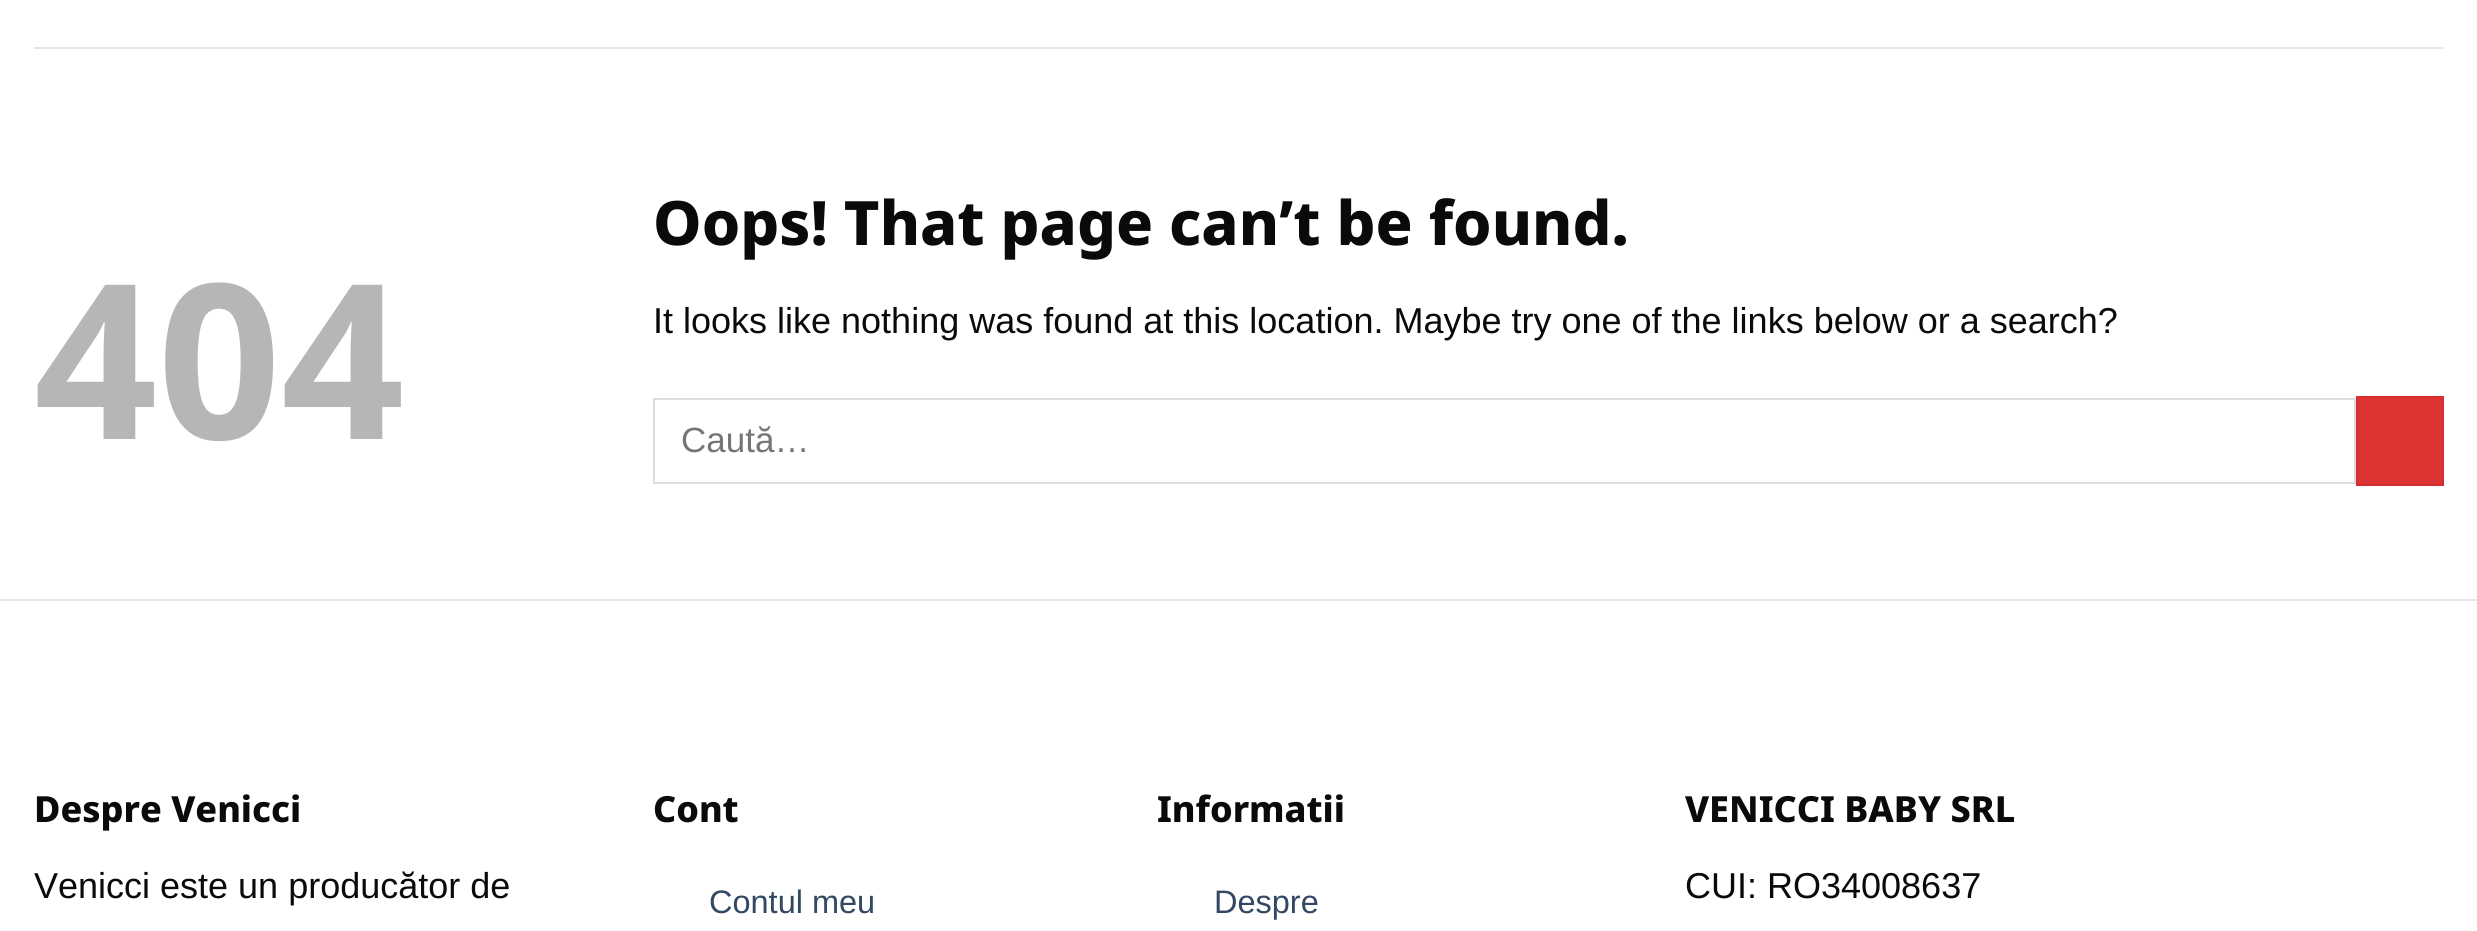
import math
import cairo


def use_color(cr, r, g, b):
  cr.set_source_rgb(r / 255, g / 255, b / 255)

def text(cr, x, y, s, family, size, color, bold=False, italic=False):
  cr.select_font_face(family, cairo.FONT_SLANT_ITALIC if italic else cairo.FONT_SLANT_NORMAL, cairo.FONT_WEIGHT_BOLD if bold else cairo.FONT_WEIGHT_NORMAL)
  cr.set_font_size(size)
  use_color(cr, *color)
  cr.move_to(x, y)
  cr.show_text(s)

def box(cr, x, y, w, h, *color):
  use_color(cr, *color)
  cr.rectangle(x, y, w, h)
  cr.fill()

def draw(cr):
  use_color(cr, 255, 255, 255)
  cr.paint()
  box(cr, 34, 47, 2410, 2, 231, 231, 231)
  cr.rectangle(654, 399, 1701, 84)
  use_color(cr, 221, 221, 221)
  cr.stroke()
  use_color(cr, 221, 51, 51)
  cr.rectangle(2357, 397, 86, 88)
  cr.fill_preserve()
  use_color(cr, 210, 48, 48)
  cr.stroke()
  box(cr, 0, 599, 2477, 2, 230, 230, 230)
  text(cr, 34, 439, "404", "Noto Sans", 216, (182, 182, 182), bold=True)
  text(cr, 653, 245, "Oops! That page can’t be found.", "Noto Sans ExtraBold", 61.25, (10, 10, 10))
  text(cr, 653, 333, "It looks like nothing was found at this location. Maybe try one of the links below or a search?", "Liberation Sans", 36, (10, 10, 10))
  text(cr, 681, 452, "Caută…", "Liberation Sans", 35, (117, 117, 117))
  text(cr, 34, 822, "Despre Venicci", "Noto Sans ExtraBold", 36, (10, 10, 10))
  text(cr, 34, 898, "Venicci este un producător de", "Liberation Sans", 36, (10, 10, 10))
  text(cr, 653, 822, "Cont", "Noto Sans ExtraBold", 36, (10, 10, 10))
  text(cr, 709, 913, "Contul meu", "Liberation Sans", 32.5, (51, 72, 98))
  text(cr, 1157, 822, "Informatii", "Noto Sans ExtraBold", 36, (10, 10, 10))
  text(cr, 1214, 913, "Despre", "Liberation Sans", 32.5, (51, 72, 98))
  text(cr, 1685, 822, "VENICCI BABY SRL", "Noto Sans ExtraBold", 36, (10, 10, 10))
  text(cr, 1685, 898, "CUI: RO34008637", "Liberation Sans", 36, (10, 10, 10))


surface = cairo.ImageSurface(cairo.FORMAT_RGB24, 2477, 931)
cr = cairo.Context(surface)
options = cairo.FontOptions()
options.set_hint_metrics(cairo.HINT_METRICS_OFF)
options.set_hint_style(cairo.HINT_STYLE_NONE)
cr.set_font_options(options)
cr.set_miter_limit(4)
draw(cr)
surface.write_to_png("out.png")
